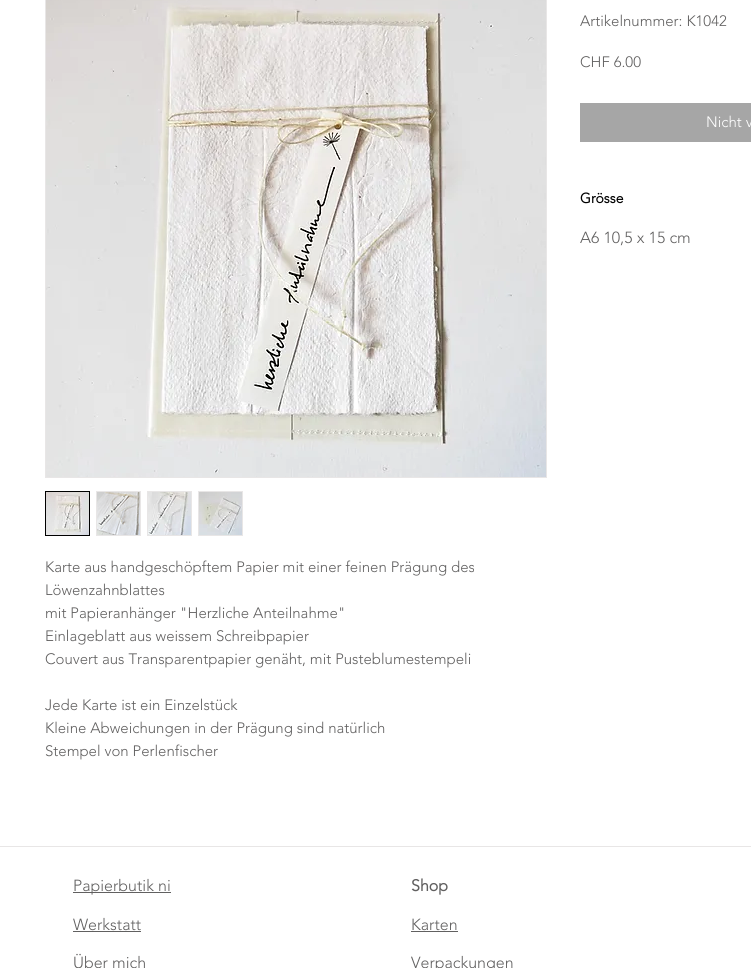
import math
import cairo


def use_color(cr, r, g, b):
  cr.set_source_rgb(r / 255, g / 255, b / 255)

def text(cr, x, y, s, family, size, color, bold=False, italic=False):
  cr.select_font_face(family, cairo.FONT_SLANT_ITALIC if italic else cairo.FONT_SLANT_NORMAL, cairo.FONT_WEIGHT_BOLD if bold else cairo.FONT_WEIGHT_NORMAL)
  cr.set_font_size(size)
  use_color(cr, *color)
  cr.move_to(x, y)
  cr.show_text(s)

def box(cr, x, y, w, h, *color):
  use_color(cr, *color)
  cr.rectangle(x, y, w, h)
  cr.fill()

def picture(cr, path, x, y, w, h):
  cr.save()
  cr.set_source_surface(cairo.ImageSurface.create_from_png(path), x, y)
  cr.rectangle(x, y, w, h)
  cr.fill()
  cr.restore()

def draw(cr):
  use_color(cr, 255, 255, 255)
  cr.paint()
  box(cr, 580, 103, 171, 39, 166, 166, 166)
  cr.rectangle(45.5, -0.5, 501, 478)
  use_color(cr, 232, 230, 230)
  cr.set_line_width(1)
  cr.stroke()
  picture(cr, "img_01.png", 46, 0, 500, 477)
  cr.rectangle(45.5, 491.5, 44, 44)
  use_color(cr, 0, 0, 0)
  cr.stroke()
  picture(cr, "img_02.png", 46, 492, 43, 43)
  cr.rectangle(96.5, 491.5, 44, 44)
  use_color(cr, 232, 230, 230)
  cr.stroke()
  picture(cr, "img_03.png", 97, 492, 43, 43)
  cr.rectangle(147.5, 491.5, 44, 44)
  cr.stroke()
  picture(cr, "img_04.png", 148, 492, 43, 43)
  cr.rectangle(198.5, 491.5, 44, 44)
  cr.stroke()
  picture(cr, "img_05.png", 199, 492, 43, 43)
  box(cr, 0, 846, 751, 1, 232, 230, 230)
  box(cr, 73, 892, 98, 1, 97, 96, 96)
  box(cr, 73, 931, 68, 1, 97, 96, 96)
  box(cr, 411, 931, 47, 1, 97, 96, 96)
  text(cr, 580, 26, "Artikelnummer: K1042", "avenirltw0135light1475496 Light", 15, (97, 96, 96))
  text(cr, 580, 67, "CHF 6.00", "avenirltw0135light1475496 Light", 15, (97, 96, 96))
  text(cr, 706, 127, "Nicht v", "avenirltw0135light1475496 Light", 15, (255, 255, 255))
  text(cr, 580, 203, "Grösse", "avenirltw0135light1475496", 14, (0, 0, 0), bold=True)
  text(cr, 580, 243, "A6 10,5 x 15 cm", "avenirltw0135light1475496 Light", 16, (97, 96, 96))
  text(cr, 45, 572, "Karte aus handgeschöpftem Papier mit einer feinen Prägung des", "avenirltw0135light1475496 Light", 15, (97, 96, 96))
  text(cr, 45, 595, "Löwenzahnblattes", "avenirltw0135light1475496 Light", 15, (97, 96, 96))
  text(cr, 45, 618, "mit Papieranhänger \"Herzliche Anteilnahme\"", "avenirltw0135light1475496 Light", 15, (97, 96, 96))
  text(cr, 45, 641, "Einlageblatt aus weissem Schreibpapier", "avenirltw0135light1475496 Light", 15, (97, 96, 96))
  text(cr, 45, 664, "Couvert aus Transparentpapier genäht, mit Pusteblumestempeli", "avenirltw0135light1475496 Light", 15, (97, 96, 96))
  text(cr, 45, 710, "Jede Karte ist ein Einzelstück", "avenirltw0135light1475496 Light", 15, (97, 96, 96))
  text(cr, 45, 733, "Kleine Abweichungen in der Prägung sind natürlich", "avenirltw0135light1475496 Light", 15, (97, 96, 96))
  text(cr, 45, 756, "Stempel von Perlenfischer", "avenirltw0135light1475496 Light", 15, (97, 96, 96))
  text(cr, 73, 891, "Papierbutik ni", "avenirltw0135light1475496 Light", 16, (97, 96, 96))
  text(cr, 73, 930, "Werkstatt", "avenirltw0135light1475496 Light", 16, (97, 96, 96))
  text(cr, 73, 968, "Über mich", "avenirltw0135light1475496 Light", 16, (97, 96, 96))
  text(cr, 411, 891, "Shop", "avenirltw0135light1475496", 16, (97, 96, 96), bold=True)
  text(cr, 411, 930, "Karten", "avenirltw0135light1475496 Light", 16, (97, 96, 96))
  text(cr, 411, 968, "Verpackungen", "avenirltw0135light1475496 Light", 16, (97, 96, 96))


surface = cairo.ImageSurface(cairo.FORMAT_RGB24, 751, 968)
cr = cairo.Context(surface)
options = cairo.FontOptions()
options.set_hint_metrics(cairo.HINT_METRICS_OFF)
options.set_hint_style(cairo.HINT_STYLE_NONE)
cr.set_font_options(options)
cr.set_miter_limit(4)
draw(cr)
surface.write_to_png("out.png")
